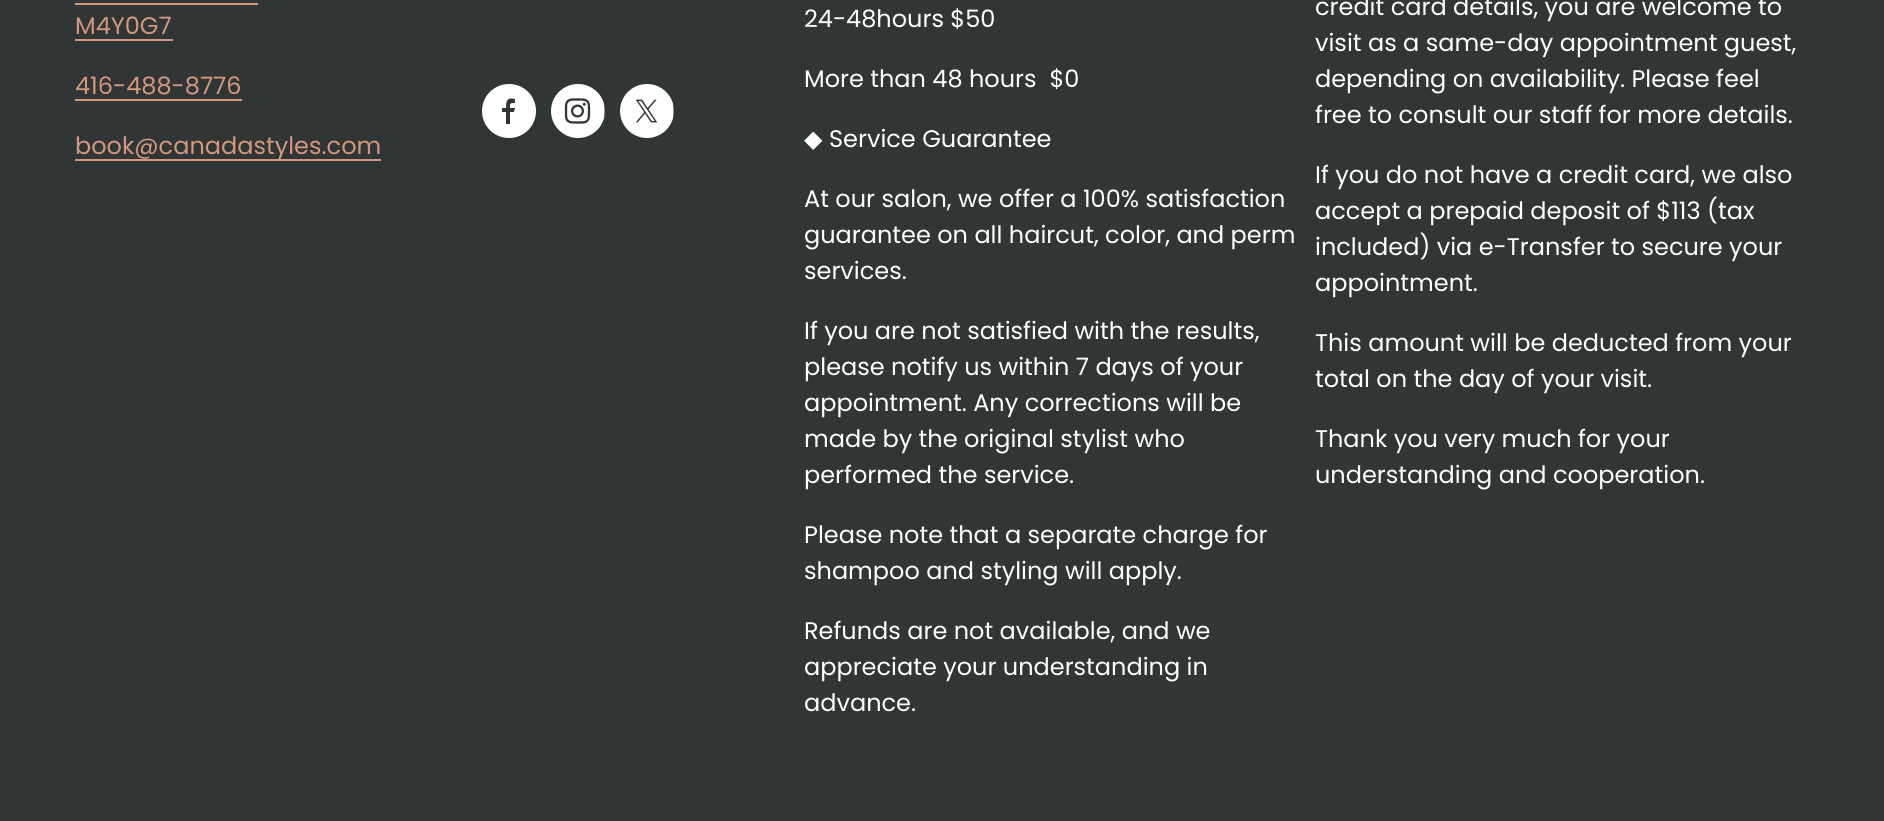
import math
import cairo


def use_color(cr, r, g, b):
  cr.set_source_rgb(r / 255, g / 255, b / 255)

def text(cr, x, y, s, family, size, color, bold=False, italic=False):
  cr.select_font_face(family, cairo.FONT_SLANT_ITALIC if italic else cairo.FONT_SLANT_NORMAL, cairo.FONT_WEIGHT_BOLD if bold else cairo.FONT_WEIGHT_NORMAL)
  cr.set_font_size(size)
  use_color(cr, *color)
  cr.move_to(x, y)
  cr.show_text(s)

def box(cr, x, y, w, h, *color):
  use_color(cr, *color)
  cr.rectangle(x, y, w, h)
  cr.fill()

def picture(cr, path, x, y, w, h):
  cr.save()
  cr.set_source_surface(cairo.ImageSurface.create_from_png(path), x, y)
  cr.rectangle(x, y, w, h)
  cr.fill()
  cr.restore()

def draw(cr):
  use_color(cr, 48, 54, 54)
  cr.paint()
  box(cr, 75, 3, 183, 2, 212, 150, 125)
  box(cr, 75, 39, 98, 2, 212, 150, 125)
  box(cr, 75, 99, 167, 2, 212, 150, 125)
  box(cr, 75, 159, 306, 2, 212, 150, 125)
  use_color(cr, 255, 255, 255)
  cr.set_fill_rule(cairo.FILL_RULE_EVEN_ODD)
  cr.new_path()
  cr.move_to(509, 84)
  cr.curve_to(494, 84, 482, 96, 482, 111)
  cr.curve_to(482, 126, 494, 138, 509, 138)
  cr.curve_to(524, 138, 536, 126, 536, 111)
  cr.curve_to(536, 96, 524, 84, 509, 84)
  cr.close_path()
  cr.move_to(515, 103)
  cr.line_to(515, 99)
  cr.curve_to(507, 97, 506, 101, 506, 108)
  cr.line_to(502, 108)
  cr.line_to(502, 112)
  cr.line_to(506, 112)
  cr.line_to(506, 124)
  cr.line_to(510, 124)
  cr.line_to(510, 112)
  cr.line_to(514, 112)
  cr.line_to(515, 108)
  cr.line_to(510, 108)
  cr.curve_to(510, 103, 510, 103, 515, 103)
  cr.close_path()
  cr.fill()
  picture(cr, "img_01.png", 551, 84, 54, 54)
  picture(cr, "img_02.png", 620, 84, 54, 54)
  text(cr, 75, 34, "M4Y0G7", "Poppins", 24, (212, 150, 125))
  text(cr, 75, 94, "416-488-8776", "Poppins", 24, (212, 150, 125))
  text(cr, 75, 154, "book@canadastyles.com", "Poppins", 24, (212, 150, 125))
  text(cr, 804, 27, "24-48hours $50", "Poppins", 24, (255, 255, 255))
  text(cr, 804, 87, "More than 48 hours  $0", "Poppins", 24, (255, 255, 255))
  text(cr, 804, 147, "◆", "DejaVu Sans", 24, (255, 255, 255))
  text(cr, 829, 147, "Service Guarantee", "Poppins", 24, (255, 255, 255))
  text(cr, 804, 207, "At our salon, we offer a 100% satisfaction", "Poppins", 24, (255, 255, 255))
  text(cr, 804, 243, "guarantee on all haircut, color, and perm", "Poppins", 24, (255, 255, 255))
  text(cr, 804, 279, "services.", "Poppins", 24, (255, 255, 255))
  text(cr, 804, 339, "If you are not satisfied with the results,", "Poppins", 24, (255, 255, 255))
  text(cr, 804, 375, "please notify us within 7 days of your", "Poppins", 24, (255, 255, 255))
  text(cr, 804, 411, "appointment. Any corrections will be", "Poppins", 24, (255, 255, 255))
  text(cr, 804, 447, "made by the original stylist who", "Poppins", 24, (255, 255, 255))
  text(cr, 804, 483, "performed the service.", "Poppins", 24, (255, 255, 255))
  text(cr, 804, 543, "Please note that a separate charge for", "Poppins", 24, (255, 255, 255))
  text(cr, 804, 579, "shampoo and styling will apply.", "Poppins", 24, (255, 255, 255))
  text(cr, 804, 639, "Refunds are not available, and we", "Poppins", 24, (255, 255, 255))
  text(cr, 804, 675, "appreciate your understanding in", "Poppins", 24, (255, 255, 255))
  text(cr, 804, 711, "advance.", "Poppins", 24, (255, 255, 255))
  text(cr, 1315, 15, "credit card details, you are welcome to", "Poppins", 24, (255, 255, 255))
  text(cr, 1315, 51, "visit as a same-day appointment guest,", "Poppins", 24, (255, 255, 255))
  text(cr, 1315, 87, "depending on availability. Please feel", "Poppins", 24, (255, 255, 255))
  text(cr, 1315, 123, "free to consult our staff for more details.", "Poppins", 24, (255, 255, 255))
  text(cr, 1315, 183, "If you do not have a credit card, we also", "Poppins", 24, (255, 255, 255))
  text(cr, 1315, 219, "accept a prepaid deposit of $113 (tax", "Poppins", 24, (255, 255, 255))
  text(cr, 1315, 255, "included) via e-Transfer to secure your", "Poppins", 24, (255, 255, 255))
  text(cr, 1315, 291, "appointment.", "Poppins", 24, (255, 255, 255))
  text(cr, 1315, 351, "This amount will be deducted from your", "Poppins", 24, (255, 255, 255))
  text(cr, 1315, 387, "total on the day of your visit.", "Poppins", 24, (255, 255, 255))
  text(cr, 1315, 447, "Thank you very much for your", "Poppins", 24, (255, 255, 255))
  text(cr, 1315, 483, "understanding and cooperation.", "Poppins", 24, (255, 255, 255))


surface = cairo.ImageSurface(cairo.FORMAT_RGB24, 1884, 821)
cr = cairo.Context(surface)
options = cairo.FontOptions()
options.set_hint_metrics(cairo.HINT_METRICS_OFF)
options.set_hint_style(cairo.HINT_STYLE_NONE)
cr.set_font_options(options)
cr.set_miter_limit(4)
draw(cr)
surface.write_to_png("out.png")
